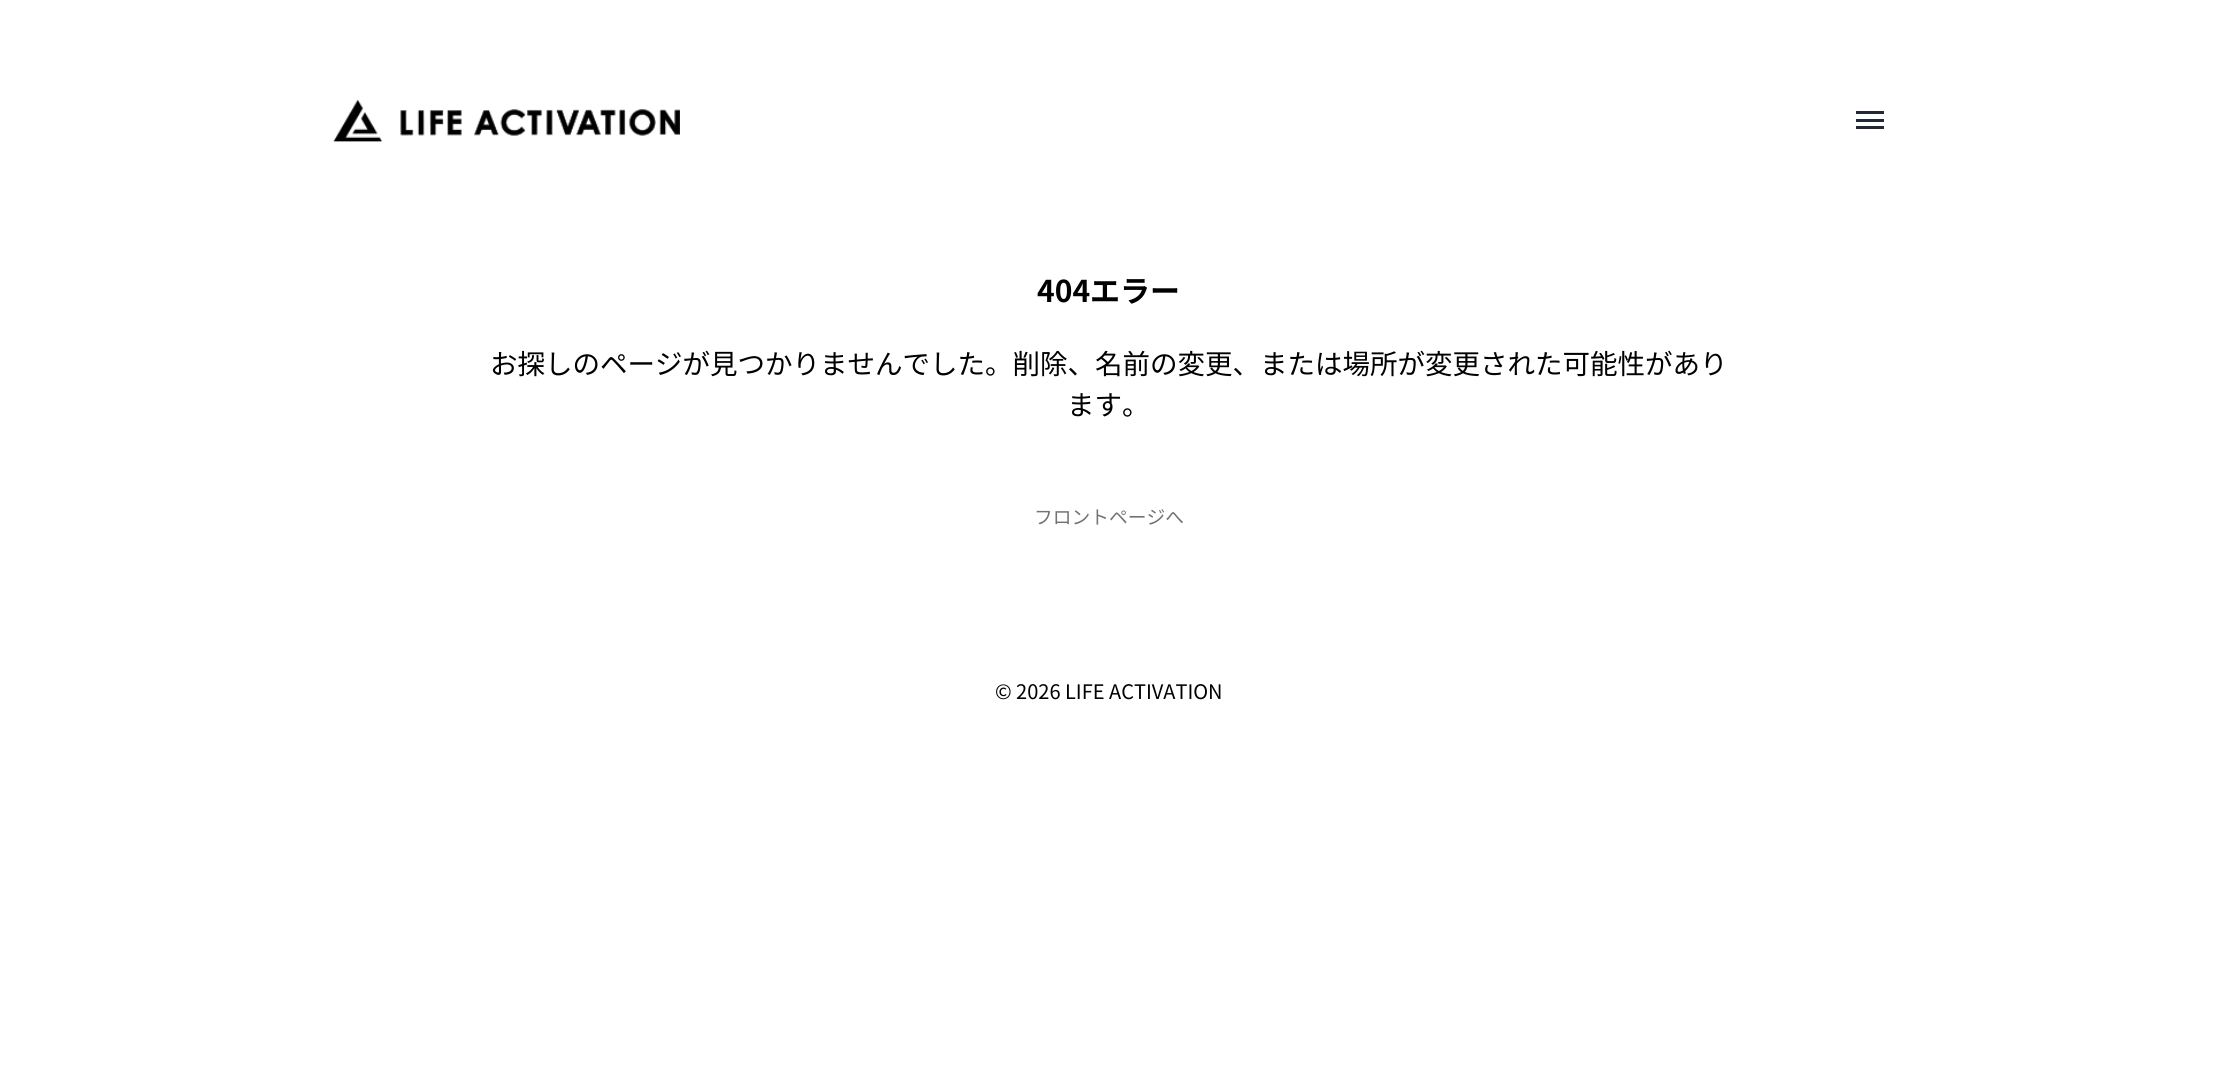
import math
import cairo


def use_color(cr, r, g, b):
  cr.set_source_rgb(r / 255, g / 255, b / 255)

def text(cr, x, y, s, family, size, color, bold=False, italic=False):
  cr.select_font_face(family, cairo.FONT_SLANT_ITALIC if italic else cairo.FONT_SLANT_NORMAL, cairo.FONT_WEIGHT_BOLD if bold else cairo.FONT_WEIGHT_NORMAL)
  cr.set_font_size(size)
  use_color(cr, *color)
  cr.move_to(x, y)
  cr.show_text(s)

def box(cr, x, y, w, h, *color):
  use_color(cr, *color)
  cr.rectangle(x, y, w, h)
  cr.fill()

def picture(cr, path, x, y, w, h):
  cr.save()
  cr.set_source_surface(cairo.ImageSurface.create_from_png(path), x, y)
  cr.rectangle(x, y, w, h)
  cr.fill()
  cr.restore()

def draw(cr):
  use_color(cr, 255, 255, 255)
  cr.paint()
  picture(cr, "img_01.png", 333, 100, 347, 42)
  box(cr, 1856, 111, 28, 3, 33, 42, 52)
  box(cr, 1856, 119, 28, 3, 33, 42, 52)
  box(cr, 1856, 126, 28, 3, 33, 42, 52)
  text(cr, 1037, 302, "404エラー", "Noto Sans JP", 30, (0, 0, 0), bold=True)
  text(cr, 490, 374, "お探しのページが見つかりませんでした。削除、名前の変更、または場所が変更された可能性があり", "Noto Sans JP", 27.5, (0, 0, 0))
  text(cr, 1067, 415, "ます。", "Noto Sans JP", 27.5, (0, 0, 0))
  text(cr, 1034, 524, "フロントページへ", "Noto Sans JP", 18.75, (115, 115, 115))
  text(cr, 995, 699, "© 2026 LIFE ACTIVATION", "Noto Sans JP", 20, (0, 0, 0))


surface = cairo.ImageSurface(cairo.FORMAT_RGB24, 2217, 1086)
cr = cairo.Context(surface)
options = cairo.FontOptions()
options.set_hint_metrics(cairo.HINT_METRICS_OFF)
options.set_hint_style(cairo.HINT_STYLE_NONE)
cr.set_font_options(options)
cr.set_miter_limit(4)
draw(cr)
surface.write_to_png("out.png")
